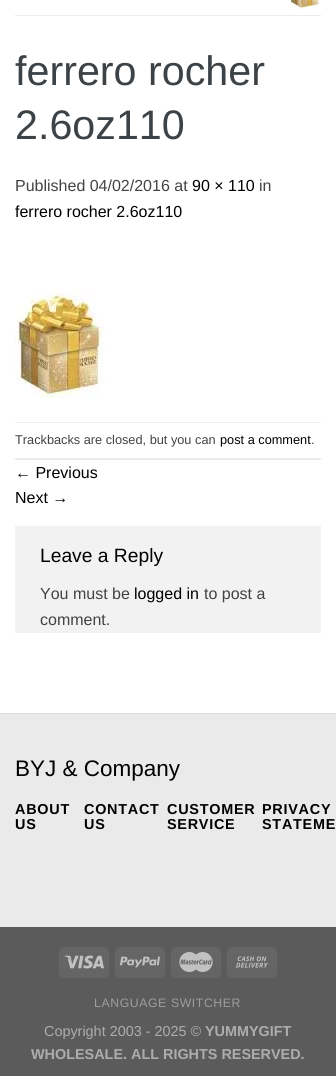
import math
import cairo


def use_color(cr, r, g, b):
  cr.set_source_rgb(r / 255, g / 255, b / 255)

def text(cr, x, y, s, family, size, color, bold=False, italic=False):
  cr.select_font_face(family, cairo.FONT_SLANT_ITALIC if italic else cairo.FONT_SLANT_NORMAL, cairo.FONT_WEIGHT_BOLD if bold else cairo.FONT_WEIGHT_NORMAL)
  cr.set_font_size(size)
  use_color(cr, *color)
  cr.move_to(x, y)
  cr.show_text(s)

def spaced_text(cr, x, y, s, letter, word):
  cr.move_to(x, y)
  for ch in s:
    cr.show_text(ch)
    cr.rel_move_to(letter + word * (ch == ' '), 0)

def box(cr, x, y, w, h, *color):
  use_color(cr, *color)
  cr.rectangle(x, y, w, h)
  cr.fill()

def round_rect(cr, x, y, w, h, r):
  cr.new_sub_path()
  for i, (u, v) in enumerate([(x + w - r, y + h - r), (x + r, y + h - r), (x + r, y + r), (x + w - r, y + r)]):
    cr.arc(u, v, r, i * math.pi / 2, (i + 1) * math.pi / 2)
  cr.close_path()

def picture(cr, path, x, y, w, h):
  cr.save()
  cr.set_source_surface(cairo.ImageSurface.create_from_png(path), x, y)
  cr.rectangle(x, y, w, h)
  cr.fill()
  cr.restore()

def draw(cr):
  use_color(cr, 255, 255, 255)
  cr.paint()
  picture(cr, "img_01.png", 290, 0, 30, 9)
  box(cr, 15, 15, 306, 1, 236, 236, 236)
  picture(cr, "img_02.png", 15, 288, 90, 110)
  box(cr, 15, 422, 306, 1, 236, 236, 236)
  box(cr, 15, 458, 306, 2, 236, 236, 236)
  box(cr, 15, 526, 306, 107, 242, 242, 242)
  box(cr, 0, 714, 336, 213, 234, 234, 234)
  box(cr, 0, 713, 336, 1, 222, 222, 222)
  box(cr, 0, 927, 336, 149, 91, 91, 91)
  use_color(cr, 101, 101, 101)
  round_rect(cr, 59, 947, 50, 31, 5)
  cr.fill()
  picture(cr, "img_03.png", 64, 955, 40, 14)
  round_rect(cr, 115, 947, 50, 31, 5)
  cr.fill()
  picture(cr, "img_04.png", 120, 956, 40, 12)
  round_rect(cr, 171, 947, 50, 31, 5)
  cr.fill()
  picture(cr, "img_05.png", 179, 952, 34, 20)
  round_rect(cr, 227, 947, 50, 31, 5)
  cr.fill()
  picture(cr, "img_06.png", 236, 956, 32, 12)
  text(cr, 15, 85, "ferrero rocher", "Liberation Sans", 41.25, (60, 66, 70))
  text(cr, 15, 139, "2.6oz110", "Liberation Sans", 41.25, (60, 66, 70))
  text(cr, 15, 191, "Published 04/02/2016 at", "Liberation Sans", 16, (66, 66, 66))
  text(cr, 192, 191, "90 × 110", "Liberation Sans", 16, (0, 0, 0))
  text(cr, 259, 191, "in", "Liberation Sans", 16, (66, 66, 66))
  text(cr, 15, 217, "ferrero rocher 2.6oz110", "Liberation Sans", 16, (0, 0, 0))
  text(cr, 15, 444, "Trackbacks are closed, but you can", "Liberation Sans", 12.75, (66, 66, 66))
  text(cr, 220, 444, "post a comment", "Liberation Sans", 12.75, (0, 0, 0))
  text(cr, 311, 444, ".", "Liberation Sans", 12.75, (66, 66, 66))
  text(cr, 15, 478, "← Previous", "Liberation Sans", 16, (0, 0, 0))
  text(cr, 15, 503, "Next →", "Liberation Sans", 16, (0, 0, 0))
  text(cr, 40, 562, "Leave a Reply", "Liberation Sans", 19.25, (0, 0, 0))
  text(cr, 40, 599, "You must be", "Liberation Sans", 16, (66, 66, 66))
  text(cr, 134, 599, "logged in", "Liberation Sans", 16, (0, 0, 0))
  text(cr, 204, 599, "to post a", "Liberation Sans", 16, (66, 66, 66))
  text(cr, 40, 625, "comment.", "Liberation Sans", 16, (66, 66, 66))
  text(cr, 15, 776, "BYJ & Company", "Liberation Sans", 22.5, (0, 0, 0))
  cr.select_font_face("Liberation Sans", cairo.FONT_SLANT_NORMAL, cairo.FONT_WEIGHT_BOLD)
  cr.set_font_size(14.4)
  spaced_text(cr, 15, 814, "ABOUT", 0.75, 0)
  spaced_text(cr, 15, 829, "US", 0.75, 0)
  spaced_text(cr, 84, 814, "CONTACT", 0.75, 0)
  spaced_text(cr, 84, 829, "US", 0.75, 0)
  spaced_text(cr, 167, 814, "CUSTOMER", 0.75, 0)
  spaced_text(cr, 167, 829, "SERVICE", 0.75, 0)
  spaced_text(cr, 262, 814, "PRIVACY", 0.75, 0)
  spaced_text(cr, 262, 829, "STATEME", 0.75, 0)
  cr.select_font_face("Liberation Sans")
  cr.set_font_size(12.25)
  use_color(cr, 157, 157, 157)
  spaced_text(cr, 94, 1007, "LANGUAGE SWITCHER", 0.6, 0)
  text(cr, 44, 1036, "Copyright 2003 - 2025 ©", "Liberation Sans", 14.4, (173, 173, 173))
  text(cr, 205, 1036, "YUMMYGIFT", "Liberation Sans", 14.4, (173, 173, 173), bold=True)
  text(cr, 31, 1059, "WHOLESALE. ALL RIGHTS RESERVED.", "Liberation Sans", 14.4, (173, 173, 173), bold=True)


surface = cairo.ImageSurface(cairo.FORMAT_RGB24, 336, 1076)
cr = cairo.Context(surface)
options = cairo.FontOptions()
options.set_hint_metrics(cairo.HINT_METRICS_OFF)
options.set_hint_style(cairo.HINT_STYLE_NONE)
cr.set_font_options(options)
cr.set_miter_limit(4)
draw(cr)
surface.write_to_png("out.png")
